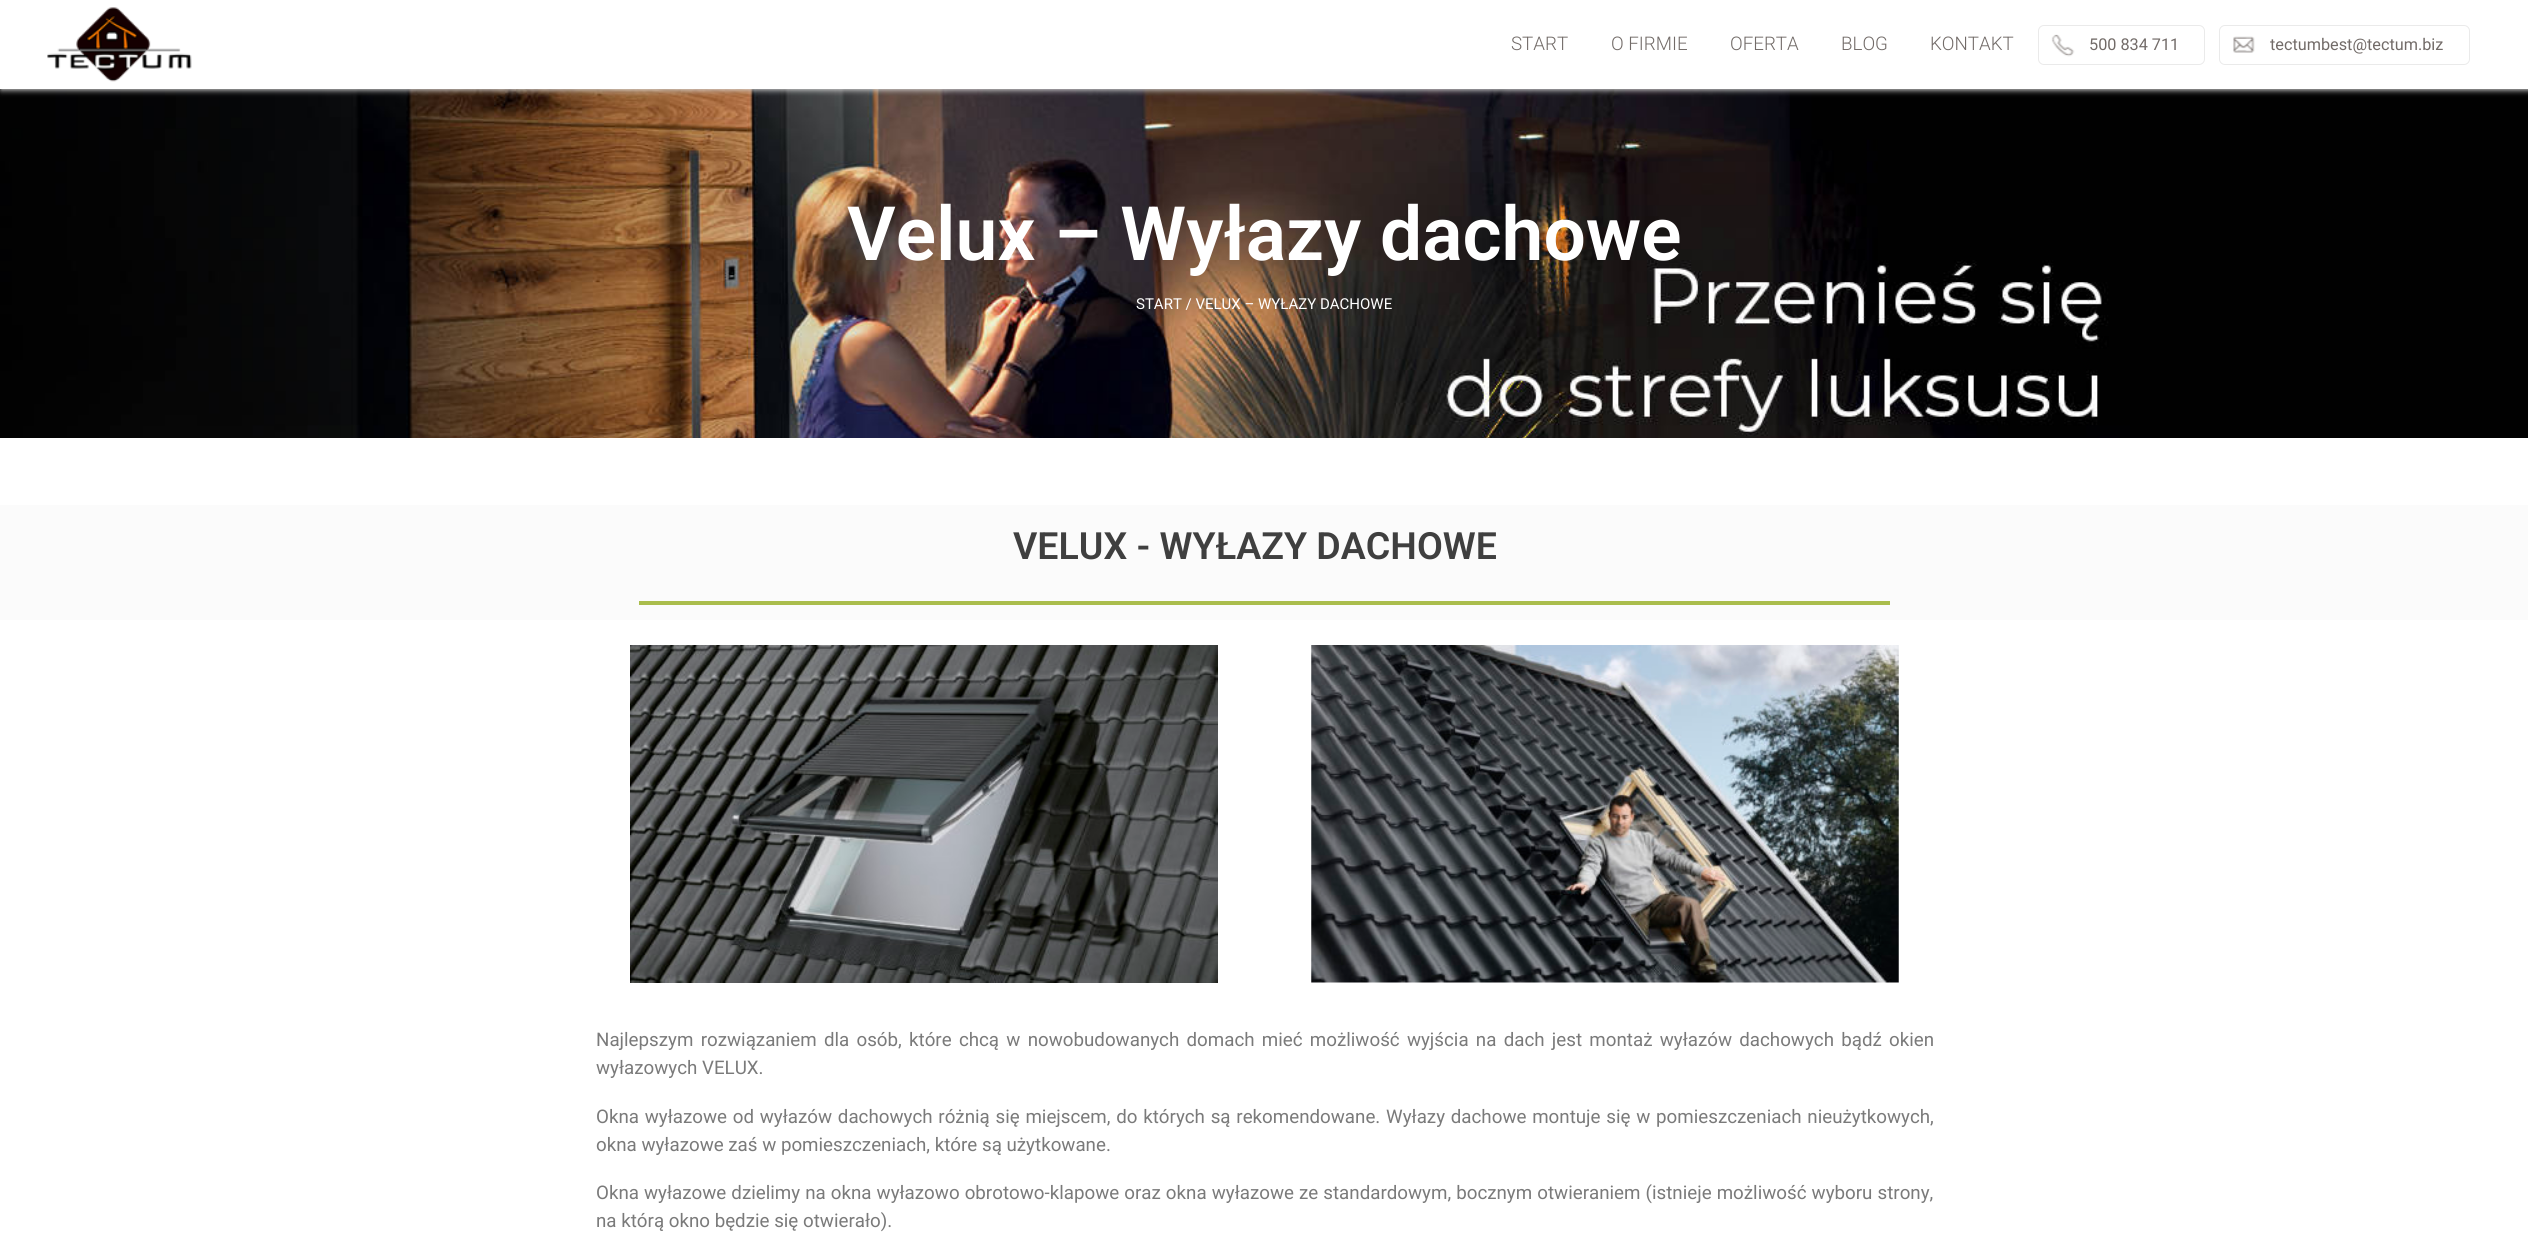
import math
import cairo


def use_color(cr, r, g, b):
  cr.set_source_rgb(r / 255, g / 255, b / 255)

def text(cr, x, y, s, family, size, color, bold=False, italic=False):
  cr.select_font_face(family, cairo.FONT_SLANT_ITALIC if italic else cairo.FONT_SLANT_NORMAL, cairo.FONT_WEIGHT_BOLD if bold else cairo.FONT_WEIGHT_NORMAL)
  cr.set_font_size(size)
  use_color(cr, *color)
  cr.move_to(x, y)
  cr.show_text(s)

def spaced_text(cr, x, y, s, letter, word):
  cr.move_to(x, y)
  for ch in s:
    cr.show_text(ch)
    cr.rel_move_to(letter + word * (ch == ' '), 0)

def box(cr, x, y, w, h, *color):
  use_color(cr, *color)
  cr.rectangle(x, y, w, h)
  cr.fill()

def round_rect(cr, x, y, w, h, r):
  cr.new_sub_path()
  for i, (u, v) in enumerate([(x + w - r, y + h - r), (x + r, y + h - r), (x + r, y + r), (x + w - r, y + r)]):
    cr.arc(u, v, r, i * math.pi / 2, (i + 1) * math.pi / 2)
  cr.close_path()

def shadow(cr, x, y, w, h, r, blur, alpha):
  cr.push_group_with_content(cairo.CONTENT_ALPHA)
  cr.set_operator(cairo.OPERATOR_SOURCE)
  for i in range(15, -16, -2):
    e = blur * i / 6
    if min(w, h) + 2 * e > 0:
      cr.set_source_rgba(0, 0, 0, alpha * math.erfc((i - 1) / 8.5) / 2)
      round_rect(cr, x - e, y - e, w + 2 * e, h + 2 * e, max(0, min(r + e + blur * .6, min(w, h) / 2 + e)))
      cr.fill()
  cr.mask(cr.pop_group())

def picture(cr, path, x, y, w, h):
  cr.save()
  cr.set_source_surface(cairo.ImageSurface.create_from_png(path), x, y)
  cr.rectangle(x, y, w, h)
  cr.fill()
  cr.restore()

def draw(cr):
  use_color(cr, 255, 255, 255)
  cr.paint()
  picture(cr, "img_04.png", 0, 89, 2528, 349)
  use_color(cr, 221, 221, 221)
  shadow(cr, 1, 1, 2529, 89, 0, 3, 1)
  box(cr, 0, 0, 2528, 89, 255, 255, 255)
  picture(cr, "img_01.png", 47, 7, 145, 75)
  picture(cr, "img_02.png", 2051, 34, 24, 23)
  round_rect(cr, 2038.5, 25.5, 166, 39, 5.5)
  use_color(cr, 234, 234, 234)
  cr.set_line_width(1)
  cr.stroke()
  picture(cr, "img_03.png", 2233, 36, 22, 17)
  round_rect(cr, 2219.5, 25.5, 250, 39, 5.5)
  cr.stroke()
  box(cr, 0, 505, 2528, 115, 251, 251, 251)
  box(cr, 639, 601, 1251, 4, 170, 189, 76)
  picture(cr, "img_05.png", 630, 645, 588, 338)
  picture(cr, "img_06.png", 1311, 645, 588, 338)
  text(cr, 1511, 50, "START", "Roboto Light", 18.75, (114, 107, 104))
  text(cr, 1611, 50, "O FIRMIE", "Roboto Light", 18.75, (114, 107, 104))
  text(cr, 1730, 50, "OFERTA", "Roboto Light", 18.75, (114, 107, 104))
  text(cr, 1841, 50, "BLOG", "Roboto Light", 18.75, (114, 107, 104))
  text(cr, 1930, 50, "KONTAKT", "Roboto Light", 18.75, (114, 107, 104))
  text(cr, 2089, 50, "500 834 711", "Roboto", 16.25, (114, 107, 104))
  text(cr, 2270, 50, "tectumbest@tectum.biz", "Roboto", 16.25, (114, 107, 104))
  text(cr, 847, 260, "Velux – Wyłazy dachowe", "Roboto SemiBold", 75, (255, 255, 255))
  text(cr, 1136, 309, "START / VELUX – WYŁAZY DACHOWE", "Roboto", 15, (255, 255, 255))
  text(cr, 1013, 559, "VELUX - WYŁAZY DACHOWE", "Roboto SemiBold", 37.5, (63, 63, 63))
  cr.select_font_face("Roboto")
  cr.set_font_size(18.75)
  use_color(cr, 122, 122, 122)
  spaced_text(cr, 596, 1046, "Najlepszym rozwiązaniem dla osób, które chcą w nowobudowanych domach mieć możliwość wyjścia na dach jest montaż wyłazów dachowych bądź okien", 0, 2.6)
  text(cr, 596, 1074, "wyłazowych VELUX.", "Roboto", 18.75, (122, 122, 122))
  spaced_text(cr, 596, 1123, "Okna wyłazowe od wyłazów dachowych różnią się miejscem, do których są rekomendowane. Wyłazy dachowe montuje się w pomieszczeniach nieużytkowych,", 0, 1.1)
  text(cr, 596, 1151, "okna wyłazowe zaś w pomieszczeniach, które są użytkowane.", "Roboto", 18.75, (122, 122, 122))
  spaced_text(cr, 596, 1199, "Okna wyłazowe dzielimy na okna wyłazowo obrotowo-klapowe oraz okna wyłazowe ze standardowym, bocznym otwieraniem (istnieje możliwość wyboru strony,", 0, 0.4)
  text(cr, 596, 1227, "na którą okno będzie się otwierało).", "Roboto", 18.75, (122, 122, 122))


surface = cairo.ImageSurface(cairo.FORMAT_RGB24, 2528, 1246)
cr = cairo.Context(surface)
options = cairo.FontOptions()
options.set_hint_metrics(cairo.HINT_METRICS_OFF)
options.set_hint_style(cairo.HINT_STYLE_NONE)
cr.set_font_options(options)
cr.set_miter_limit(4)
draw(cr)
surface.write_to_png("out.png")
